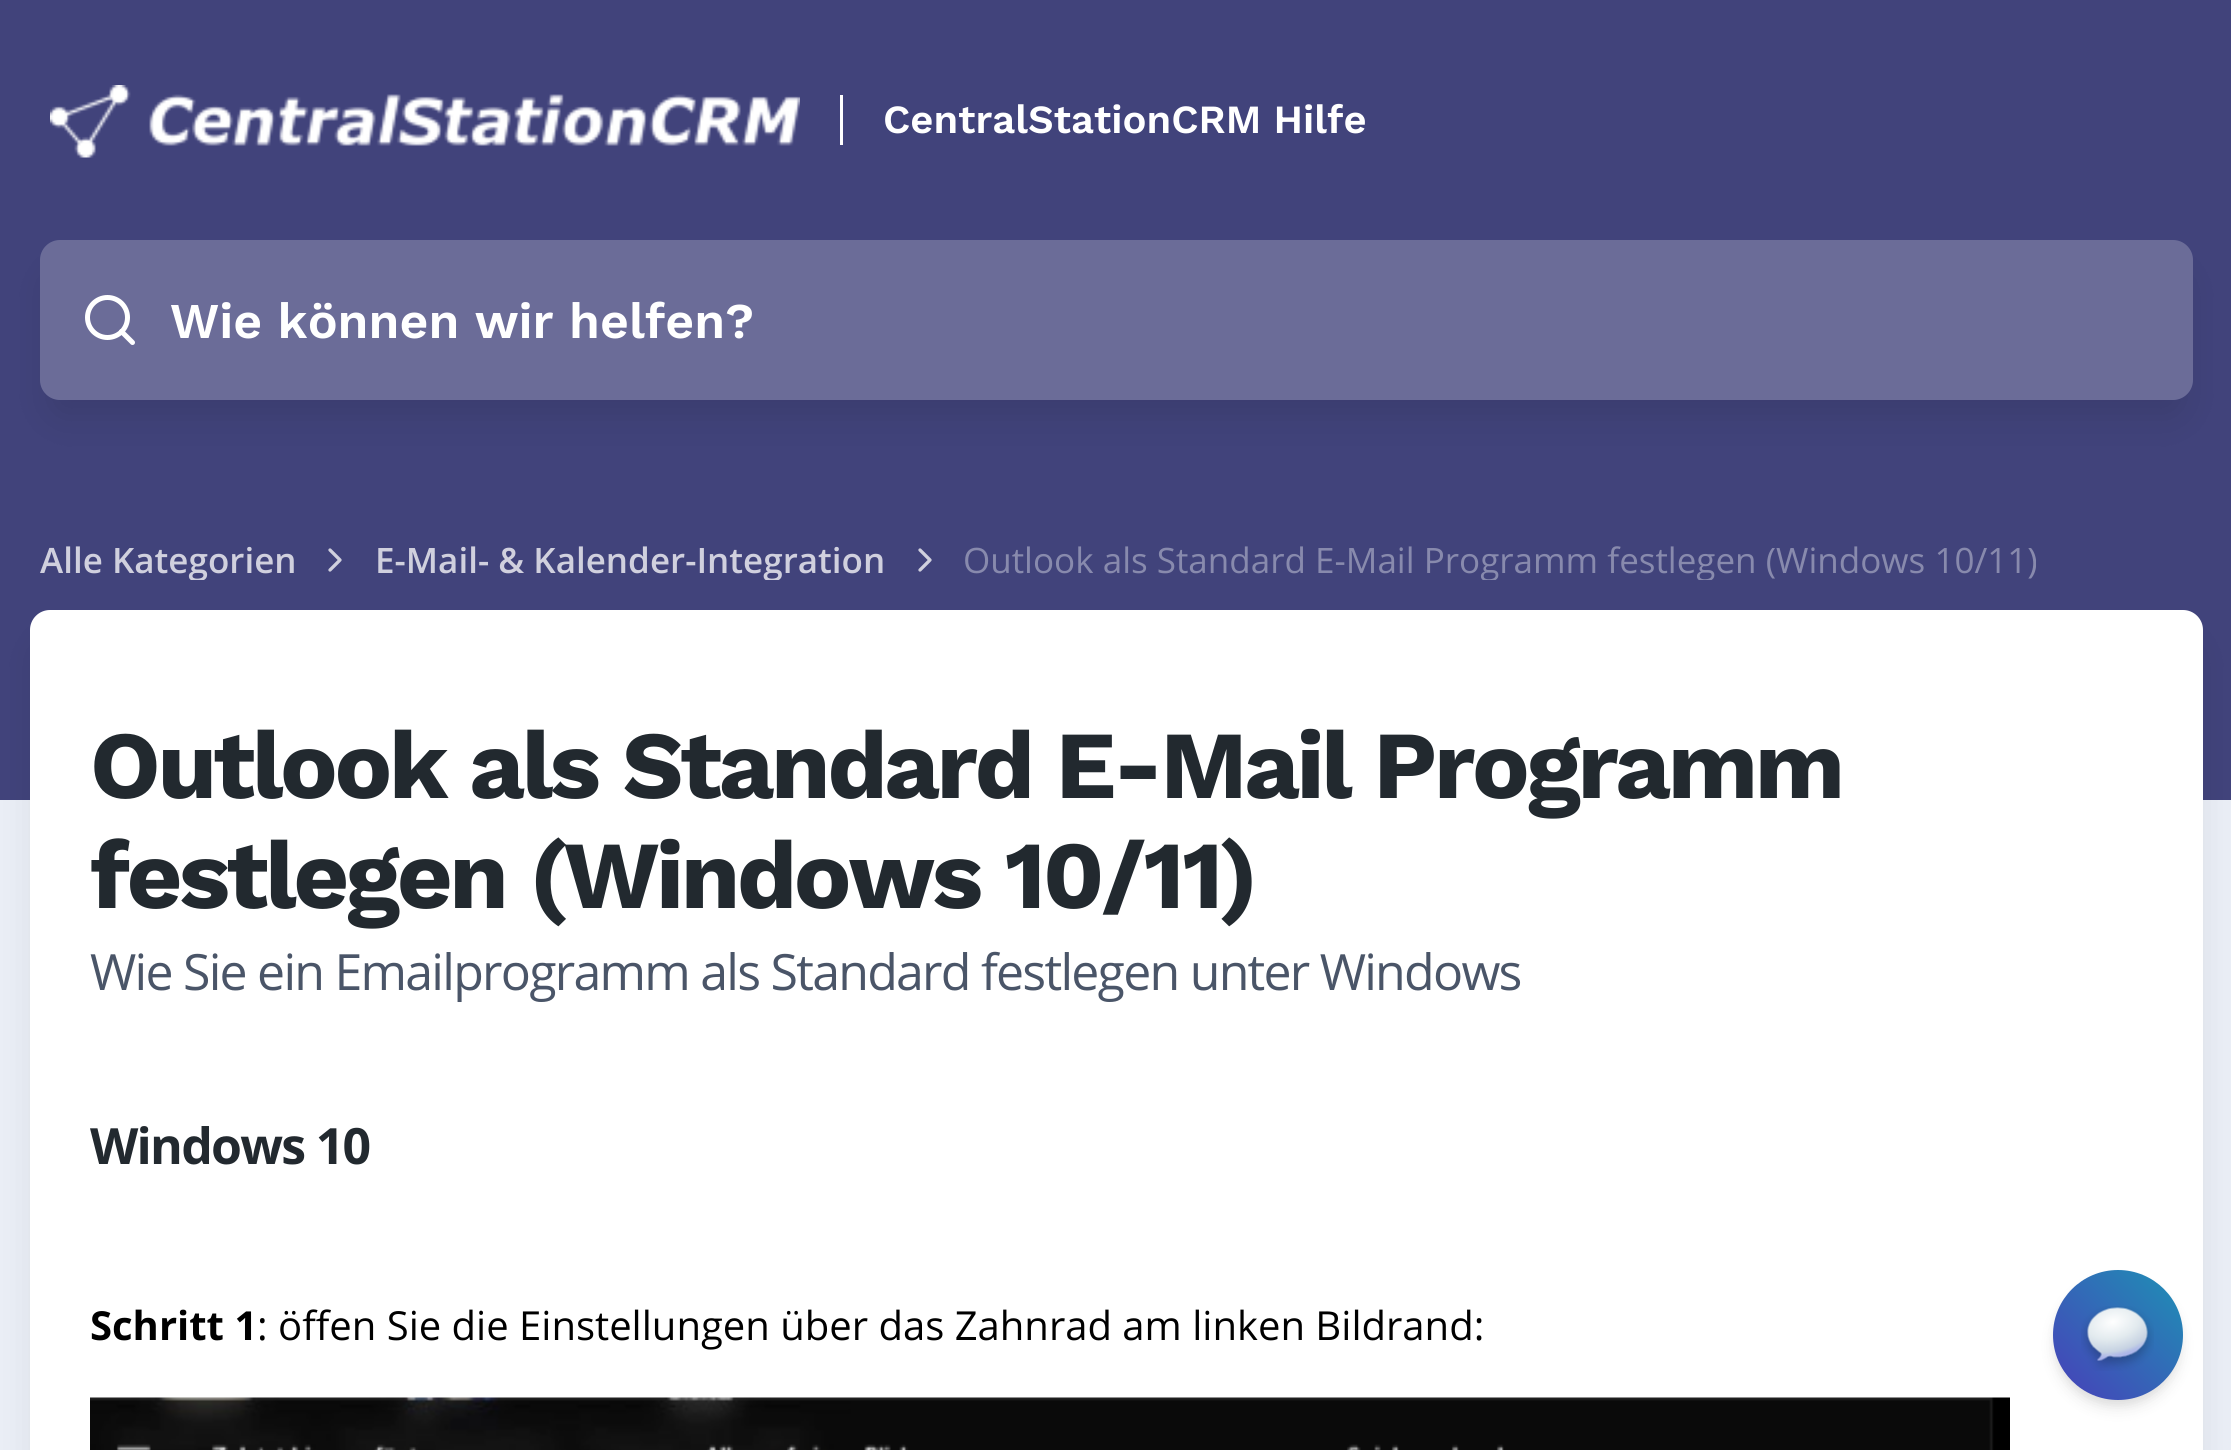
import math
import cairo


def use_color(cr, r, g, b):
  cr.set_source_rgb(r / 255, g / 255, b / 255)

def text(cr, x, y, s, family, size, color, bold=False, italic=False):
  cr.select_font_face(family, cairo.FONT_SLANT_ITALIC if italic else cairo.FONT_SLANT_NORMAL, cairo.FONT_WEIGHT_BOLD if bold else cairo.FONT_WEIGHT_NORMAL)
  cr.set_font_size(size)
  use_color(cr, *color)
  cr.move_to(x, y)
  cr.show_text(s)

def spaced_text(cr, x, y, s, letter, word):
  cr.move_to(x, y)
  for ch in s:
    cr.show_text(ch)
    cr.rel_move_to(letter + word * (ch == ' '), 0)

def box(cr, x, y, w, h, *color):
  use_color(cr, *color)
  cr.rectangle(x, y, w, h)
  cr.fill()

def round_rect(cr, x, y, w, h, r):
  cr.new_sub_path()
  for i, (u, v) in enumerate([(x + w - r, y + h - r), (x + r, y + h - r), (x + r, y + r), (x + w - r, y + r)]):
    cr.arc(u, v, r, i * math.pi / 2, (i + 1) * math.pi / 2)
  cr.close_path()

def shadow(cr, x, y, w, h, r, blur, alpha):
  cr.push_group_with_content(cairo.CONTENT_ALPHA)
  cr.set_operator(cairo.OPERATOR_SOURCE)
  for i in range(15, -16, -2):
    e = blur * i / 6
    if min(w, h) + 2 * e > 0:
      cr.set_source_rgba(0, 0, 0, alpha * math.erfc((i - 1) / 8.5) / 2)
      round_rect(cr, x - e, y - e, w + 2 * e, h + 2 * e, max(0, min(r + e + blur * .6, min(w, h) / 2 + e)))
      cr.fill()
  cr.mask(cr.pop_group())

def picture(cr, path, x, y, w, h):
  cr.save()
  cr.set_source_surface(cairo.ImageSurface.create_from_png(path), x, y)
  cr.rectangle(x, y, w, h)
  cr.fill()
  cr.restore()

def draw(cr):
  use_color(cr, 234, 238, 246)
  cr.paint()
  box(cr, 0, 0, 2231, 800, 65, 67, 123)
  picture(cr, "img_01.png", 50, 85, 750, 73)
  box(cr, 840, 95, 3, 50, 255, 255, 255)
  cr.save()
  cr.set_fill_rule(cairo.FILL_RULE_EVEN_ODD)
  cr.new_path()
  cr.move_to(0, 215)
  cr.line_to(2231, 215)
  cr.line_to(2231, 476)
  cr.line_to(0, 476)
  cr.close_path()
  cr.move_to(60, 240)
  cr.line_to(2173, 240)
  cr.curve_to(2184, 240, 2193, 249, 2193, 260)
  cr.line_to(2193, 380)
  cr.curve_to(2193, 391, 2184, 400, 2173, 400)
  cr.line_to(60, 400)
  cr.curve_to(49, 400, 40, 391, 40, 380)
  cr.line_to(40, 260)
  cr.curve_to(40, 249, 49, 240, 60, 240)
  cr.close_path()
  cr.clip()
  use_color(cr, 0, 0, 0)
  shadow(cr, 48, 273, 2137, 145, 13, 19, 0.1)
  cr.restore()
  cr.set_source_rgba(1, 1, 1, 0.22)
  round_rect(cr, 40, 240, 2153, 160, 20)
  cr.fill()
  cr.arc(107.5, 317.5, 20, 0, 2 * math.pi)
  use_color(cr, 255, 255, 255)
  cr.set_line_width(5)
  cr.stroke()
  cr.new_path()
  cr.move_to(132.5, 342.5)
  cr.line_to(121.5, 331.5)
  cr.set_line_cap(cairo.LINE_CAP_ROUND)
  cr.set_line_join(cairo.LINE_JOIN_ROUND)
  cr.stroke()
  cr.new_path()
  cr.move_to(330, 570)
  cr.line_to(340, 560)
  cr.line_to(330, 550)
  use_color(cr, 208, 208, 222)
  cr.set_line_width(3.3)
  cr.stroke()
  cr.new_path()
  cr.move_to(920, 570)
  cr.line_to(930, 560)
  cr.line_to(920, 550)
  cr.stroke()
  use_color(cr, 0, 0, 0)
  shadow(cr, 38, 643, 2157, 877, 13, 19, 0.1)
  use_color(cr, 255, 255, 255)
  round_rect(cr, 30, 610, 2173, 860, 20)
  cr.fill()
  picture(cr, "img_02.png", 90, 1397, 1920, 53)
  use_color(cr, 0, 0, 0)
  shadow(cr, 2055, 1278, 125, 125, 62.5, 5, 0.06)
  shadow(cr, 2055, 1283, 125, 125, 62.5, 7.5, 0.1)
  gradient = cairo.LinearGradient(2053, 1400, 2183, 1270)
  gradient.add_color_stop_rgba(0, 0.282, 0.247, 0.725, 1)
  gradient.add_color_stop_rgba(1, 0.118, 0.569, 0.71, 1)
  cr.set_source(gradient)
  cr.arc(2118, 1335, 65, 0, 2 * math.pi)
  cr.fill()
  picture(cr, "img_03.png", 2081, 1306, 73, 65)
  text(cr, 883, 133, "CentralStationCRM Hilfe", "Work Sans SemiBold", 40, (255, 255, 255))
  text(cr, 170, 338, "Wie können wir helfen?", "Work Sans SemiBold", 50, (255, 255, 255))
  cr.save()
  cr.rectangle(30, 540, 2173, 40)
  cr.clip()
  text(cr, 40, 573, "Alle Kategorien", "Open Sans SemiBold", 35, (208, 208, 222))
  text(cr, 375, 573, "E-Mail- & Kalender-Integration", "Open Sans SemiBold", 35, (208, 208, 222))
  text(cr, 963, 573, "Outlook als Standard E-Mail Programm festlegen (Windows 10/11)", "Open Sans", 35, (136, 138, 173))
  cr.restore()
  cr.select_font_face("Work Sans", cairo.FONT_SLANT_NORMAL, cairo.FONT_WEIGHT_BOLD)
  cr.set_font_size(96)
  use_color(cr, 34, 41, 47)
  spaced_text(cr, 90, 798, "Outlook als Standard E-Mail Programm", -3.35, 0)
  spaced_text(cr, 90, 908, "festlegen (Windows 10/11)", -3.35, 0)
  cr.select_font_face("Open Sans")
  cr.set_font_size(50)
  use_color(cr, 74, 85, 104)
  spaced_text(cr, 90, 990, "Wie Sie ein Emailprogramm als Standard festlegen unter Windows", -1.75, 0)
  cr.select_font_face("Open Sans", cairo.FONT_SLANT_NORMAL, cairo.FONT_WEIGHT_BOLD)
  use_color(cr, 34, 41, 47)
  spaced_text(cr, 90, 1164, "Windows 10", -1.75, 0)
  text(cr, 90, 1340, "Schritt 1", "Open Sans", 40, (0, 0, 0), bold=True)
  text(cr, 257, 1340, ": öffen Sie die Einstellungen über das Zahnrad am linken Bildrand:", "Open Sans", 40, (0, 0, 0))


surface = cairo.ImageSurface(cairo.FORMAT_RGB24, 2231, 1450)
cr = cairo.Context(surface)
options = cairo.FontOptions()
options.set_hint_metrics(cairo.HINT_METRICS_OFF)
options.set_hint_style(cairo.HINT_STYLE_NONE)
cr.set_font_options(options)
cr.set_miter_limit(4)
draw(cr)
surface.write_to_png("out.png")
